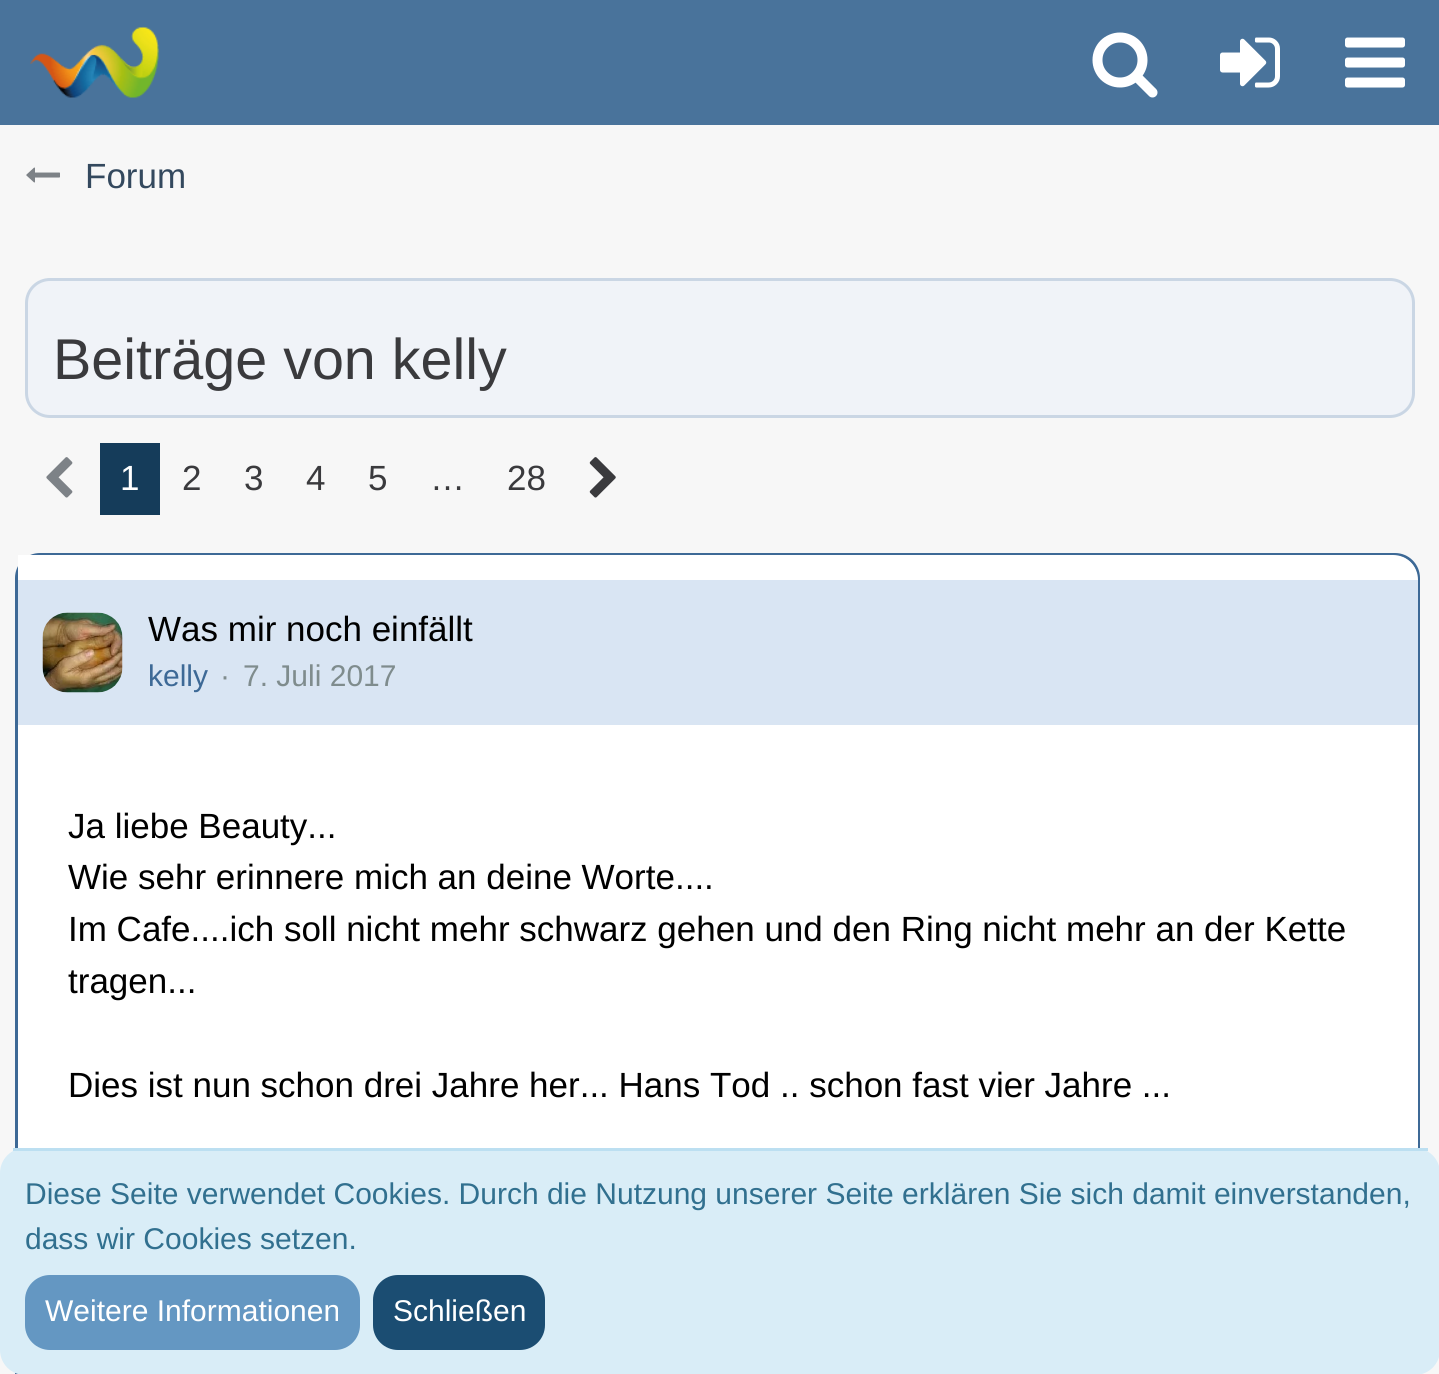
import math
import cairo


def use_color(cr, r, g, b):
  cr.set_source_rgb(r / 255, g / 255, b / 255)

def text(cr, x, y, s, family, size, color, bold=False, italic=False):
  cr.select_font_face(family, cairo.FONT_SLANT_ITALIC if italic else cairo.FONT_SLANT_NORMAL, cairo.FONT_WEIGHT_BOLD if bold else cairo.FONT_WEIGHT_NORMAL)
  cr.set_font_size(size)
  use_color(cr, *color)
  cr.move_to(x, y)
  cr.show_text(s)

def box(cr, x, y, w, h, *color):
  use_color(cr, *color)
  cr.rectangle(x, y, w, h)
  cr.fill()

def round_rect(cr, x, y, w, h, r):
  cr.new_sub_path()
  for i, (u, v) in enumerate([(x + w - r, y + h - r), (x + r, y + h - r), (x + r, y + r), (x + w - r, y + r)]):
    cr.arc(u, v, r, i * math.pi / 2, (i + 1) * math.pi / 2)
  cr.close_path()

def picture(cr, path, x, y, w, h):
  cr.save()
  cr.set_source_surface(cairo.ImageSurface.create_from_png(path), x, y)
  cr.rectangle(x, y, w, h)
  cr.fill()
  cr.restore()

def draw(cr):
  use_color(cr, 247, 247, 247)
  cr.paint()
  box(cr, 0, 0, 1439, 125, 73, 115, 155)
  picture(cr, "img_01.png", 30, 26, 129, 72)
  picture(cr, "img_02.png", 1092, 32, 66, 66)
  picture(cr, "img_03.png", 1220, 37, 60, 51)
  picture(cr, "img_04.png", 1345, 37, 60, 51)
  picture(cr, "img_05.png", 26, 167, 34, 16)
  use_color(cr, 240, 243, 248)
  round_rect(cr, 25, 278, 1390, 140, 25)
  cr.fill()
  round_rect(cr, 26.5, 279.5, 1387, 137, 23.5)
  cr.set_source_rgba(0.2, 0.4, 0.6, 0.2)
  cr.set_line_width(3)
  cr.stroke()
  picture(cr, "img_06.png", 46, 457, 27, 41)
  box(cr, 100, 443, 60, 72, 21, 60, 90)
  picture(cr, "img_07.png", 589, 457, 27, 41)
  round_rect(cr, 16.5, 554.5, 1402, 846, 23.5)
  use_color(cr, 61, 105, 150)
  cr.stroke()
  use_color(cr, 255, 255, 255)
  cr.new_path()
  cr.move_to(18, 555)
  cr.line_to(1393, 555)
  cr.curve_to(1407, 555, 1418, 566, 1418, 580)
  cr.line_to(1418, 1374)
  cr.curve_to(1418, 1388, 1407, 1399, 1393, 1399)
  cr.line_to(18, 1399)
  cr.close_path()
  cr.fill()
  box(cr, 18, 580, 1400, 145, 217, 229, 243)
  picture(cr, "img_08.png", 42, 612, 81, 81)
  use_color(cr, 217, 237, 247)
  round_rect(cr, 0, 1148, 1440, 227, 25)
  cr.fill()
  box(cr, 13, 1148, 1415, 3, 188, 223, 241)
  use_color(cr, 100, 151, 194)
  round_rect(cr, 25, 1275, 335, 75, 25)
  cr.fill()
  use_color(cr, 27, 77, 114)
  round_rect(cr, 373, 1275, 172, 75, 25)
  cr.fill()
  text(cr, 85, 188, "Forum", "Liberation Sans", 35, (52, 73, 94))
  text(cr, 53, 379, "Beiträge von kelly", "Liberation Sans", 57.5, (58, 58, 61))
  text(cr, 120, 490, "1", "Liberation Sans", 35, (255, 255, 255))
  text(cr, 182, 490, "2", "Liberation Sans", 35, (58, 58, 61))
  text(cr, 244, 490, "3", "Liberation Sans", 35, (58, 58, 61))
  text(cr, 306, 490, "4", "Liberation Sans", 35, (58, 58, 61))
  text(cr, 368, 490, "5", "Liberation Sans", 35, (58, 58, 61))
  text(cr, 430, 490, "…", "Liberation Sans", 35, (58, 58, 61))
  text(cr, 507, 490, "28", "Liberation Sans", 35, (58, 58, 61))
  text(cr, 148, 641, "Was mir noch einfällt", "Liberation Sans", 35, (0, 0, 0))
  text(cr, 148, 686, "kelly", "Liberation Sans", 30, (61, 105, 150))
  text(cr, 220, 686, "·", "Liberation Sans", 30, (127, 140, 141))
  text(cr, 243, 686, "7. Juli 2017", "Liberation Sans", 30, (127, 140, 141))
  text(cr, 68, 838, "Ja liebe Beauty...", "Liberation Sans", 35, (0, 0, 0))
  text(cr, 68, 889, "Wie sehr erinnere mich an deine Worte....", "Liberation Sans", 35, (0, 0, 0))
  text(cr, 68, 941, "Im Cafe....ich soll nicht mehr schwarz gehen und den Ring nicht mehr an der Kette", "Liberation Sans", 35, (0, 0, 0))
  text(cr, 68, 993, "tragen...", "Liberation Sans", 35, (0, 0, 0))
  text(cr, 68, 1097, "Dies ist nun schon drei Jahre her... Hans Tod .. schon fast vier Jahre ...", "Liberation Sans", 35, (0, 0, 0))
  text(cr, 25, 1204, "Diese Seite verwendet Cookies. Durch die Nutzung unserer Seite erklären Sie sich damit einverstanden,", "Liberation Sans", 30, (49, 112, 143))
  text(cr, 25, 1249, "dass wir Cookies setzen.", "Liberation Sans", 30, (49, 112, 143))
  text(cr, 45, 1321, "Weitere Informationen", "Liberation Sans", 30, (255, 255, 255))
  text(cr, 393, 1321, "Schließen", "Liberation Sans", 30, (255, 255, 255))


surface = cairo.ImageSurface(cairo.FORMAT_RGB24, 1439, 1374)
cr = cairo.Context(surface)
options = cairo.FontOptions()
options.set_hint_metrics(cairo.HINT_METRICS_OFF)
options.set_hint_style(cairo.HINT_STYLE_NONE)
cr.set_font_options(options)
cr.set_miter_limit(4)
draw(cr)
surface.write_to_png("out.png")
